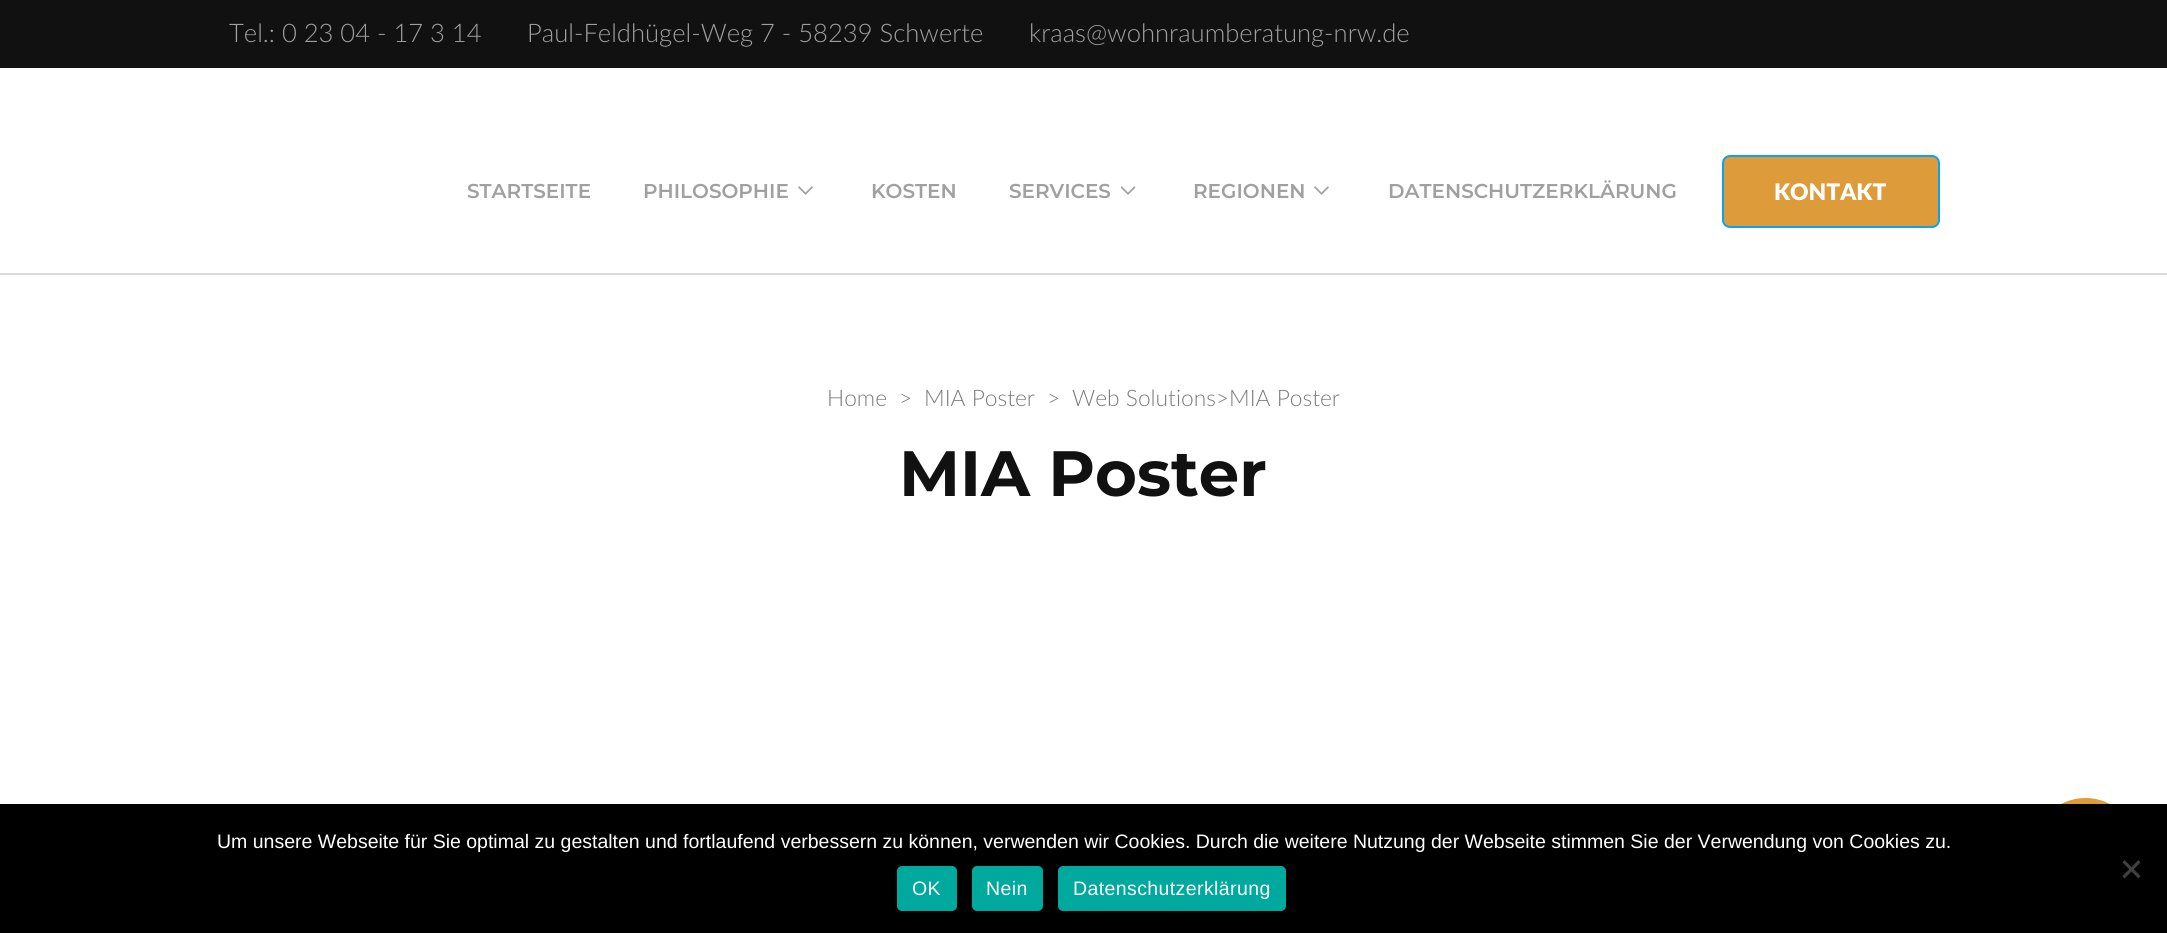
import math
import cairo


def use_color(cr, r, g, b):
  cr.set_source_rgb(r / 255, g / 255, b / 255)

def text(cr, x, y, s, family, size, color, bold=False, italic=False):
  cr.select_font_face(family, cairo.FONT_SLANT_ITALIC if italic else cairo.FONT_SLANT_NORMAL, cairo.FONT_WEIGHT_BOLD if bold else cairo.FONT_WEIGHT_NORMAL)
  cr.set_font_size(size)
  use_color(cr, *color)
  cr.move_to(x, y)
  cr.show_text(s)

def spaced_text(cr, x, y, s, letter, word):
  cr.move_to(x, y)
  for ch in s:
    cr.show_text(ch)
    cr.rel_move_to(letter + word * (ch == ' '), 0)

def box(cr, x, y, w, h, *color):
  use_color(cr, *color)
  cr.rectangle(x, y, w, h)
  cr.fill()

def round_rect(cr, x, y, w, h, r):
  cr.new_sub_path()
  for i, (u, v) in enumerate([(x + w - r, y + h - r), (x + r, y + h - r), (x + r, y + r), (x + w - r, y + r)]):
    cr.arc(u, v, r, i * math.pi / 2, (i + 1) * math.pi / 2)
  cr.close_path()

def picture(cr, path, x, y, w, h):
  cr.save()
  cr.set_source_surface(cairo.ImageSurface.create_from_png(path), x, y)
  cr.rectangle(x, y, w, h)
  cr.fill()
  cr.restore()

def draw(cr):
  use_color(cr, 255, 255, 255)
  cr.paint()
  box(cr, 0, 0, 2167, 68, 17, 17, 17)
  box(cr, 0, 273, 2167, 2, 219, 219, 219)
  picture(cr, "img_01.png", 798, 186, 15, 9)
  picture(cr, "img_02.png", 1121, 186, 15, 9)
  picture(cr, "img_01.png", 1314, 186, 15, 9)
  use_color(cr, 221, 156, 57)
  round_rect(cr, 1723, 156, 216, 71, 7)
  cr.fill_preserve()
  use_color(cr, 10, 163, 243)
  cr.stroke()
  use_color(cr, 221, 156, 57)
  cr.arc(2085.5, 850.5, 52.5, 0, 2 * math.pi)
  cr.fill()
  box(cr, 0, 804, 2167, 129, 0, 0, 0)
  use_color(cr, 64, 64, 64)
  cr.new_path()
  cr.move_to(2138.5, 860)
  cr.line_to(2140.5, 862.5)
  cr.line_to(2124.5, 878.5)
  cr.line_to(2122.5, 876)
  cr.close_path()
  cr.fill()
  cr.new_path()
  cr.move_to(2122.5, 862.5)
  cr.line_to(2124.5, 860)
  cr.line_to(2140.5, 876)
  cr.line_to(2138.5, 878.5)
  cr.close_path()
  cr.fill()
  use_color(cr, 0, 169, 157)
  round_rect(cr, 897, 866, 60, 45, 5)
  cr.fill()
  round_rect(cr, 972, 866, 71, 45, 5)
  cr.fill()
  round_rect(cr, 1058, 866, 228, 45, 5)
  cr.fill()
  text(cr, 229, 42, "Tel.: 0 23 04 - 17 3 14", "Lato Light", 25.6, (160, 160, 160))
  text(cr, 527, 42, "Paul-Feldhügel-Weg 7 - 58239 Schwerte", "Lato Light", 25.6, (160, 160, 160))
  text(cr, 1029, 42, "kraas@wohnraumberatung-nrw.de", "Lato Light", 25.6, (160, 160, 160))
  text(cr, 467, 198, "STARTSEITE", "Montserrat SemiBold", 20, (160, 160, 160))
  text(cr, 643, 198, "PHILOSOPHIE", "Montserrat SemiBold", 20, (160, 160, 160))
  text(cr, 871, 198, "KOSTEN", "Montserrat SemiBold", 20, (160, 160, 160))
  text(cr, 1009, 198, "SERVICES", "Montserrat SemiBold", 20, (160, 160, 160))
  text(cr, 1193, 198, "REGIONEN", "Montserrat SemiBold", 20, (160, 160, 160))
  text(cr, 1388, 198, "DATENSCHUTZERKLÄRUNG", "Montserrat SemiBold", 20, (160, 160, 160))
  text(cr, 1774, 200, "KONTAKT", "Lato Black", 22.75, (255, 255, 255))
  text(cr, 827, 406, "Home", "Lato Light", 22.75, (123, 123, 123))
  text(cr, 899, 406, ">", "Lato Light", 22.75, (123, 123, 123))
  text(cr, 924, 406, "MIA Poster", "Lato Light", 22.75, (123, 123, 123))
  text(cr, 1047, 406, ">", "Lato Light", 22.75, (123, 123, 123))
  text(cr, 1072, 406, "Web Solutions>MIA Poster", "Lato Light", 22.75, (123, 123, 123))
  text(cr, 899, 496, "MIA Poster", "Montserrat", 64, (17, 17, 17), bold=True)
  text(cr, 217, 848, "Um unsere Webseite für Sie optimal zu gestalten und fortlaufend verbessern zu können, verwenden wir Cookies. Durch die weitere Nutzung der Webseite stimmen Sie der Verwendung von Cookies zu.", "Liberation Sans", 19.5, (255, 255, 255))
  spaced_text(cr, 912, 895, "OK", 0.4, 0)
  spaced_text(cr, 986, 895, "Nein", 0.4, 0)
  spaced_text(cr, 1073, 895, "Datenschutzerklärung", 0.4, 0)


surface = cairo.ImageSurface(cairo.FORMAT_RGB24, 2167, 933)
cr = cairo.Context(surface)
options = cairo.FontOptions()
options.set_hint_metrics(cairo.HINT_METRICS_OFF)
options.set_hint_style(cairo.HINT_STYLE_NONE)
cr.set_font_options(options)
cr.set_miter_limit(4)
draw(cr)
surface.write_to_png("out.png")
